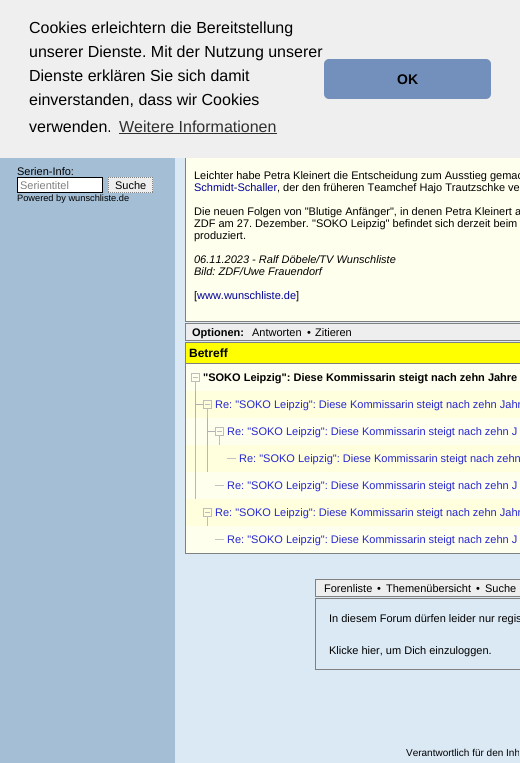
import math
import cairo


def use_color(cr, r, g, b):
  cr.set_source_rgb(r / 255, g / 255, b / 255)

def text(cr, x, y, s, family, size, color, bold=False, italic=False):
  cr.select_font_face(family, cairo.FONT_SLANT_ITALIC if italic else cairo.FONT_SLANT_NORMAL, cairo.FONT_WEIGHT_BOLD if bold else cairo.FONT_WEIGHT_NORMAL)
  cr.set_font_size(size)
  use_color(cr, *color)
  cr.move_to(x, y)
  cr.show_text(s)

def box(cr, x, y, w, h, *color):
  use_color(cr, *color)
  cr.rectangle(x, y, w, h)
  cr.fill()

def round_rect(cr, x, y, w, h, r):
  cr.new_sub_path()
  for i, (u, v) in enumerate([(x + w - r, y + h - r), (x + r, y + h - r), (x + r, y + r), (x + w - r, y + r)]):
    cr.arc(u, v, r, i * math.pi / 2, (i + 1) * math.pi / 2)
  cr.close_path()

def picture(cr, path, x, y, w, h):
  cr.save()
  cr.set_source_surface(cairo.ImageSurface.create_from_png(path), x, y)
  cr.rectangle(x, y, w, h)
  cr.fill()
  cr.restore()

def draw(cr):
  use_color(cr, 164, 190, 213)
  cr.paint()
  box(cr, 175, 158, 345, 605, 219, 233, 245)
  box(cr, 186, 158, 334, 163, 255, 255, 238)
  cr.rectangle(185.5, 8.5, 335, 313)
  use_color(cr, 128, 128, 128)
  cr.set_line_width(1)
  cr.stroke()
  box(cr, 0, 0, 520, 158, 239, 239, 239)
  box(cr, 119, 133, 158, 1, 48, 48, 48)
  use_color(cr, 114, 144, 187)
  round_rect(cr, 324, 59, 167, 40, 5)
  cr.fill()
  use_color(cr, 255, 255, 255)
  cr.rectangle(17.5, 177.5, 85, 15)
  cr.fill_preserve()
  use_color(cr, 0, 0, 0)
  cr.stroke()
  box(cr, 108, 177, 45, 16, 238, 238, 238)
  cr.new_path()
  cr.move_to(108, 177.5)
  cr.line_to(153, 177.5)
  cr.move_to(152.5, 177)
  cr.line_to(152.5, 193)
  cr.move_to(108, 192.5)
  cr.line_to(153, 192.5)
  cr.move_to(108.5, 177)
  cr.line_to(108.5, 193)
  use_color(cr, 128, 128, 128)
  cr.set_dash([1, 1])
  cr.stroke()
  use_color(cr, 238, 238, 238)
  cr.rectangle(185.5, 323.5, 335, 17)
  cr.fill_preserve()
  use_color(cr, 128, 128, 128)
  cr.set_dash([])
  cr.stroke()
  cr.rectangle(185.5, 342.5, 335, 211)
  cr.stroke()
  box(cr, 186, 343, 334, 20, 255, 255, 0)
  box(cr, 186, 363, 334, 1, 128, 128, 128)
  box(cr, 186, 364, 334, 27, 255, 255, 238)
  picture(cr, "img_01.png", 191, 373, 9, 18)
  box(cr, 186, 391, 334, 27, 255, 255, 221)
  picture(cr, "img_02.png", 195, 391, 8, 27)
  picture(cr, "img_03.png", 203, 400, 9, 18)
  box(cr, 186, 418, 334, 27, 255, 255, 238)
  box(cr, 186, 445, 334, 27, 255, 255, 221)
  box(cr, 186, 472, 334, 27, 255, 255, 238)
  box(cr, 195, 418, 1, 81, 184, 184, 184)
  picture(cr, "img_04.png", 207, 418, 8, 27)
  picture(cr, "img_01.png", 215, 427, 9, 18)
  box(cr, 207, 445, 1, 27, 184, 184, 184)
  box(cr, 227, 458, 9, 1, 194, 194, 194)
  box(cr, 215, 485, 9, 1, 194, 194, 194)
  box(cr, 186, 499, 334, 27, 255, 255, 221)
  picture(cr, "img_03.png", 203, 508, 9, 18)
  box(cr, 186, 526, 334, 27, 255, 255, 238)
  box(cr, 215, 539, 9, 1, 194, 194, 194)
  use_color(cr, 238, 238, 238)
  cr.rectangle(315.5, 579.5, 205, 17)
  cr.fill_preserve()
  use_color(cr, 128, 128, 128)
  cr.stroke()
  cr.rectangle(315.5, 598.5, 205, 71)
  cr.stroke()
  text(cr, 29, 33, "Cookies erleichtern die Bereitstellung", "Liberation Sans", 16, (0, 0, 0))
  text(cr, 29, 57, "unserer Dienste. Mit der Nutzung unserer", "Liberation Sans", 16, (0, 0, 0))
  text(cr, 29, 81, "Dienste erklären Sie sich damit", "Liberation Sans", 16, (0, 0, 0))
  text(cr, 29, 105, "einverstanden, dass wir Cookies", "Liberation Sans", 16, (0, 0, 0))
  text(cr, 29, 132, "verwenden.", "Liberation Sans", 16, (0, 0, 0))
  text(cr, 119, 132, "Weitere Informationen", "Liberation Sans", 16, (48, 48, 48))
  text(cr, 397, 84, "OK", "Liberation Sans", 14, (0, 0, 0), bold=True)
  text(cr, 17, 175, "Serien-Info:", "Liberation Sans", 11, (0, 0, 0))
  text(cr, 20, 189, "Serientitel", "Liberation Sans", 11, (128, 128, 128))
  text(cr, 115, 189, "Suche", "Liberation Sans", 11, (0, 0, 0))
  text(cr, 17, 201, "Powered by wunschliste.de", "Liberation Sans", 9.25, (0, 0, 0))
  text(cr, 194, 179, "Leichter habe Petra Kleinert die Entscheidung zum Ausstieg gemac", "Liberation Sans", 11, (0, 0, 0))
  text(cr, 194, 191, "Schmidt-Schaller", "Liberation Sans", 11, (0, 0, 153))
  text(cr, 277, 191, ", der den früheren Teamchef Hajo Trautzschke ve", "Liberation Sans", 11, (0, 0, 0))
  text(cr, 194, 215, "Die neuen Folgen von \"Blutige Anfänger\", in denen Petra Kleinert a", "Liberation Sans", 11, (0, 0, 0))
  text(cr, 194, 227, "ZDF am 27. Dezember. \"SOKO Leipzig\" befindet sich derzeit beim", "Liberation Sans", 11, (0, 0, 0))
  text(cr, 194, 239, "produziert.", "Liberation Sans", 11, (0, 0, 0))
  text(cr, 194, 263, "06.11.2023 - Ralf Döbele/TV Wunschliste", "Liberation Sans", 11, (0, 0, 0), italic=True)
  text(cr, 194, 275, "Bild: ZDF/Uwe Frauendorf", "Liberation Sans", 11, (0, 0, 0), italic=True)
  text(cr, 194, 299, "[", "Liberation Sans", 11, (0, 0, 0))
  text(cr, 197, 299, "www.wunschliste.de", "Liberation Sans", 11, (0, 0, 153))
  text(cr, 296, 299, "]", "Liberation Sans", 11, (0, 0, 0))
  text(cr, 192, 336, "Optionen:", "Liberation Sans", 11, (0, 0, 0), bold=True)
  text(cr, 252, 336, "Antworten", "Liberation Sans", 11, (0, 0, 0))
  text(cr, 307, 336, "•", "Liberation Sans", 11, (0, 0, 0))
  text(cr, 315, 336, "Zitieren", "Liberation Sans", 11, (0, 0, 0))
  text(cr, 189, 357, "Betreff", "Liberation Sans", 12, (0, 0, 0), bold=True)
  text(cr, 203, 381, "\"SOKO Leipzig\": Diese Kommissarin steigt nach zehn Jahre", "Liberation Sans", 11, (0, 0, 0), bold=True)
  text(cr, 215, 408, "Re: \"SOKO Leipzig\": Diese Kommissarin steigt nach zehn Jahr", "Liberation Sans", 11, (38, 38, 210))
  text(cr, 227, 435, "Re: \"SOKO Leipzig\": Diese Kommissarin steigt nach zehn J", "Liberation Sans", 11, (38, 38, 210))
  text(cr, 239, 462, "Re: \"SOKO Leipzig\": Diese Kommissarin steigt nach zehn", "Liberation Sans", 11, (38, 38, 210))
  text(cr, 227, 489, "Re: \"SOKO Leipzig\": Diese Kommissarin steigt nach zehn J", "Liberation Sans", 11, (38, 38, 210))
  text(cr, 215, 516, "Re: \"SOKO Leipzig\": Diese Kommissarin steigt nach zehn Jahr", "Liberation Sans", 11, (38, 38, 210))
  text(cr, 227, 543, "Re: \"SOKO Leipzig\": Diese Kommissarin steigt nach zehn J", "Liberation Sans", 11, (38, 38, 210))
  text(cr, 324, 592, "Forenliste", "Liberation Sans", 11, (0, 0, 0))
  text(cr, 377, 592, "•", "Liberation Sans", 11, (0, 0, 0))
  text(cr, 386, 592, "Themenübersicht", "Liberation Sans", 11, (0, 0, 0))
  text(cr, 476, 592, "•", "Liberation Sans", 11, (0, 0, 0))
  text(cr, 485, 592, "Suche", "Liberation Sans", 11, (0, 0, 0))
  text(cr, 329, 622, "In diesem Forum dürfen leider nur regis", "Liberation Sans", 11, (0, 0, 0))
  text(cr, 329, 654, "Klicke hier, um Dich einzuloggen.", "Liberation Sans", 11, (0, 0, 0))
  text(cr, 406, 756, "Verantwortlich für den Inh", "Liberation Sans", 10, (0, 0, 0))


surface = cairo.ImageSurface(cairo.FORMAT_RGB24, 520, 763)
cr = cairo.Context(surface)
options = cairo.FontOptions()
options.set_hint_metrics(cairo.HINT_METRICS_OFF)
options.set_hint_style(cairo.HINT_STYLE_NONE)
cr.set_font_options(options)
cr.set_miter_limit(4)
draw(cr)
surface.write_to_png("out.png")
